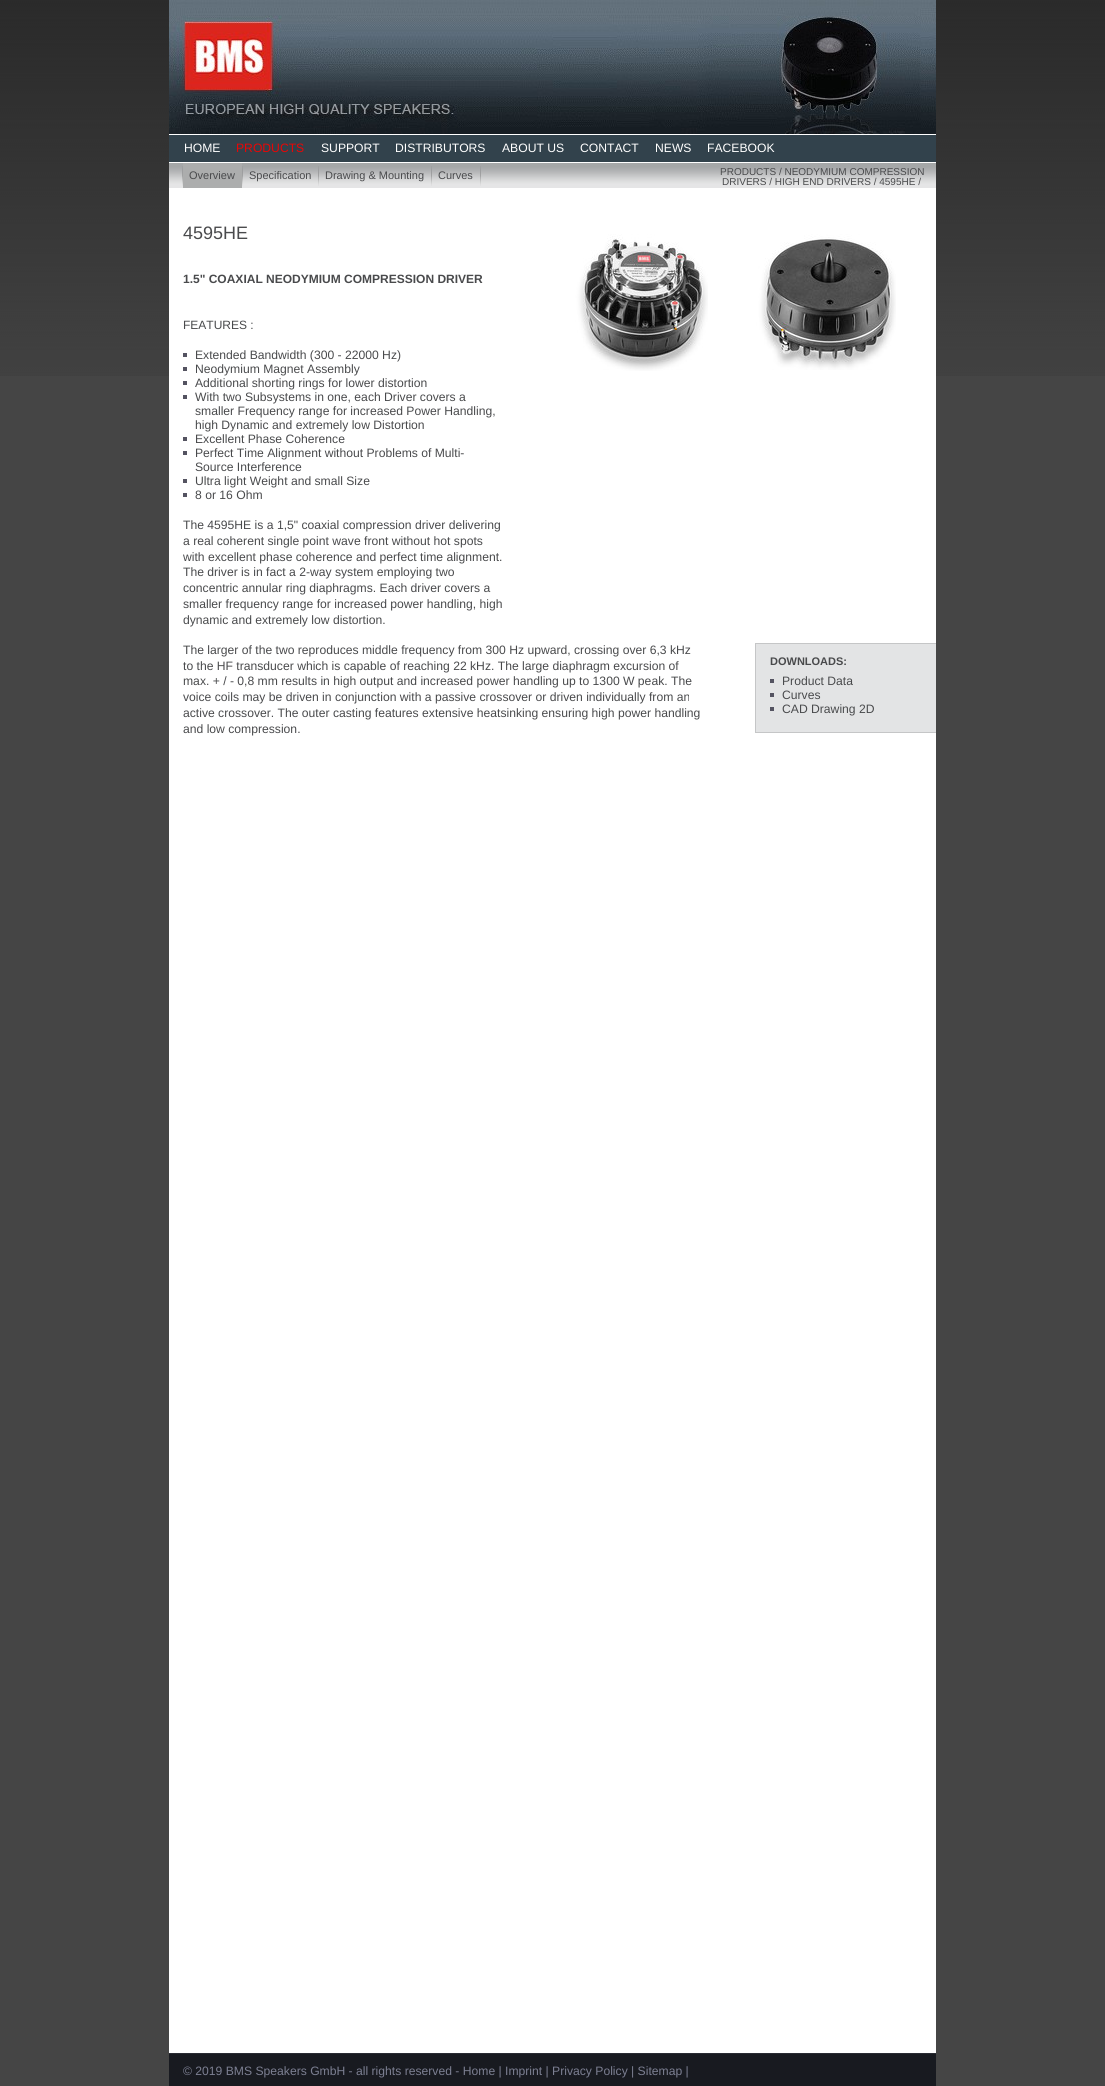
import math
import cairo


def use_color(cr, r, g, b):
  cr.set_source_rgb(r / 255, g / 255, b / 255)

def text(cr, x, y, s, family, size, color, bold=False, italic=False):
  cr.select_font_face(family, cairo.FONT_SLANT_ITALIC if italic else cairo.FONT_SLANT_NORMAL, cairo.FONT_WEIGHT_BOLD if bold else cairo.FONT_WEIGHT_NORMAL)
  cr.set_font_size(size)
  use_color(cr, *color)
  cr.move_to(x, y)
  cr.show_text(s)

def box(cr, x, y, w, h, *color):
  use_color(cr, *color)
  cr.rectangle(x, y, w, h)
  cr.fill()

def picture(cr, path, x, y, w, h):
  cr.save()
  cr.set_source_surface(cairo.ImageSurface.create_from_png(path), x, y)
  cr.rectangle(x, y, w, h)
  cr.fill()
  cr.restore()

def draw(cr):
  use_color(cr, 69, 69, 69)
  cr.paint()
  picture(cr, "img_01.png", 0, 0, 1105, 376)
  box(cr, 169, 134, 767, 1919, 255, 255, 255)
  picture(cr, "img_02.png", 169, 0, 767, 134)
  box(cr, 169, 135, 767, 27, 50, 66, 76)
  picture(cr, "img_03.png", 169, 163, 767, 25)
  picture(cr, "img_04.png", 182, 166, 1, 20)
  picture(cr, "img_04.png", 242, 166, 1, 20)
  box(cr, 183, 163, 59, 25, 172, 173, 173)
  picture(cr, "img_04.png", 318, 166, 1, 20)
  picture(cr, "img_04.png", 431, 166, 1, 20)
  picture(cr, "img_04.png", 480, 166, 1, 20)
  box(cr, 183, 353, 4, 4, 84, 83, 97)
  box(cr, 183, 367, 4, 4, 84, 83, 97)
  box(cr, 183, 381, 4, 4, 84, 83, 97)
  box(cr, 183, 395, 4, 4, 84, 83, 97)
  box(cr, 183, 437, 4, 4, 84, 83, 97)
  box(cr, 183, 451, 4, 4, 84, 83, 97)
  box(cr, 183, 479, 4, 4, 84, 83, 97)
  box(cr, 183, 493, 4, 4, 84, 83, 97)
  picture(cr, "img_05.png", 559, 215, 149, 156)
  picture(cr, "img_06.png", 740, 215, 156, 155)
  box(cr, 756, 644, 180, 88, 227, 228, 229)
  box(cr, 755, 643, 181, 1, 197, 198, 199)
  box(cr, 755, 732, 181, 1, 197, 198, 199)
  box(cr, 755, 643, 1, 90, 197, 198, 199)
  box(cr, 770, 679, 4, 4, 84, 83, 97)
  box(cr, 770, 693, 4, 4, 84, 83, 97)
  box(cr, 770, 707, 4, 4, 84, 83, 97)
  box(cr, 169, 2054, 767, 32, 24, 26, 32)
  box(cr, 169, 2053, 767, 1, 41, 43, 51)
  text(cr, 184, 152, "HOME", "Liberation Sans", 12.15, (255, 255, 255))
  text(cr, 236, 152, "PRODUCTS", "Liberation Sans", 12.15, (234, 5, 5))
  text(cr, 321, 152, "SUPPORT", "Liberation Sans", 12.15, (255, 255, 255))
  text(cr, 395, 152, "DISTRIBUTORS", "Liberation Sans", 12.15, (255, 255, 255))
  text(cr, 502, 152, "ABOUT US", "Liberation Sans", 12.15, (255, 255, 255))
  text(cr, 580, 152, "CONTACT", "Liberation Sans", 12.15, (255, 255, 255))
  text(cr, 655, 152, "NEWS", "Liberation Sans", 12.15, (255, 255, 255))
  text(cr, 707, 152, "FACEBOOK", "Liberation Sans", 12.15, (255, 255, 255))
  text(cr, 189, 179, "Overview", "Liberation Sans", 11, (73, 74, 76))
  text(cr, 249, 179, "Specification", "Liberation Sans", 11, (73, 74, 76))
  text(cr, 325, 179, "Drawing & Mounting", "Liberation Sans", 11, (73, 74, 76))
  text(cr, 438, 179, "Curves", "Liberation Sans", 11, (73, 74, 76))
  text(cr, 720, 175, "PRODUCTS / NEODYMIUM COMPRESSION", "Liberation Sans", 10, (73, 74, 76))
  text(cr, 722, 185, "DRIVERS / HIGH END DRIVERS / 4595HE /", "Liberation Sans", 10, (73, 74, 76))
  text(cr, 183, 239, "4595HE", "Liberation Sans", 18, (73, 74, 76))
  text(cr, 183, 283, "1.5\" COAXIAL NEODYMIUM COMPRESSION DRIVER", "Liberation Sans", 12, (73, 74, 76), bold=True)
  text(cr, 183, 329, "FEATURES :", "Liberation Sans", 12, (73, 74, 76))
  text(cr, 195, 359, "Extended Bandwidth (300 - 22000 Hz)", "Liberation Sans", 12.15, (73, 74, 76))
  text(cr, 195, 373, "Neodymium Magnet Assembly", "Liberation Sans", 12.15, (73, 74, 76))
  text(cr, 195, 387, "Additional shorting rings for lower distortion", "Liberation Sans", 12.15, (73, 74, 76))
  text(cr, 195, 401, "With two Subsystems in one, each Driver covers a", "Liberation Sans", 12.15, (73, 74, 76))
  text(cr, 195, 415, "smaller Frequency range for increased Power Handling,", "Liberation Sans", 12.15, (73, 74, 76))
  text(cr, 195, 429, "high Dynamic and extremely low Distortion", "Liberation Sans", 12.15, (73, 74, 76))
  text(cr, 195, 443, "Excellent Phase Coherence", "Liberation Sans", 12.15, (73, 74, 76))
  text(cr, 195, 457, "Perfect Time Alignment without Problems of Multi-", "Liberation Sans", 12.15, (73, 74, 76))
  text(cr, 195, 471, "Source Interference", "Liberation Sans", 12.15, (73, 74, 76))
  text(cr, 195, 485, "Ultra light Weight and small Size", "Liberation Sans", 12.15, (73, 74, 76))
  text(cr, 195, 499, "8 or 16 Ohm", "Liberation Sans", 12.15, (73, 74, 76))
  text(cr, 183, 529, "The 4595HE is a 1,5\" coaxial compression driver delivering", "Liberation Sans", 12.15, (73, 74, 76))
  text(cr, 183, 545, "a real coherent single point wave front without hot spots", "Liberation Sans", 12.15, (73, 74, 76))
  text(cr, 183, 561, "with excellent phase coherence and perfect time alignment.", "Liberation Sans", 12.15, (73, 74, 76))
  text(cr, 183, 576, "The driver is in fact a 2-way system employing two", "Liberation Sans", 12.15, (73, 74, 76))
  text(cr, 183, 592, "concentric annular ring diaphragms. Each driver covers a", "Liberation Sans", 12.15, (73, 74, 76))
  text(cr, 183, 608, "smaller frequency range for increased power handling, high", "Liberation Sans", 12.15, (73, 74, 76))
  text(cr, 183, 624, "dynamic and extremely low distortion.", "Liberation Sans", 12.15, (73, 74, 76))
  text(cr, 183, 654, "The larger of the two reproduces middle frequency from 300 Hz upward, crossing over 6,3 kHz", "Liberation Sans", 12.15, (73, 74, 76))
  text(cr, 183, 670, "to the HF transducer which is capable of reaching 22 kHz. The large diaphragm excursion of", "Liberation Sans", 12.15, (73, 74, 76))
  text(cr, 183, 685, "max. + / - 0,8 mm results in high output and increased power handling up to 1300 W peak. The", "Liberation Sans", 12.15, (73, 74, 76))
  text(cr, 183, 701, "voice coils may be driven in conjunction with a passive crossover or driven individually from an", "Liberation Sans", 12.15, (73, 74, 76))
  text(cr, 183, 717, "active crossover. The outer casting features extensive heatsinking ensuring high power handling", "Liberation Sans", 12.15, (73, 74, 76))
  text(cr, 183, 733, "and low compression.", "Liberation Sans", 12.15, (73, 74, 76))
  text(cr, 770, 665, "DOWNLOADS:", "Liberation Sans", 11, (73, 74, 76), bold=True)
  text(cr, 782, 685, "Product Data", "Liberation Sans", 12.15, (73, 74, 76))
  text(cr, 782, 699, "Curves", "Liberation Sans", 12.15, (73, 74, 76))
  text(cr, 782, 713, "CAD Drawing 2D", "Liberation Sans", 12.15, (73, 74, 76))
  text(cr, 183, 2075, "© 2019 BMS Speakers GmbH - all rights reserved - Home | Imprint | Privacy Policy | Sitemap |", "Liberation Sans", 12.15, (124, 127, 146))


surface = cairo.ImageSurface(cairo.FORMAT_RGB24, 1105, 2086)
cr = cairo.Context(surface)
options = cairo.FontOptions()
options.set_hint_metrics(cairo.HINT_METRICS_OFF)
options.set_hint_style(cairo.HINT_STYLE_NONE)
cr.set_font_options(options)
cr.set_miter_limit(4)
draw(cr)
surface.write_to_png("out.png")
